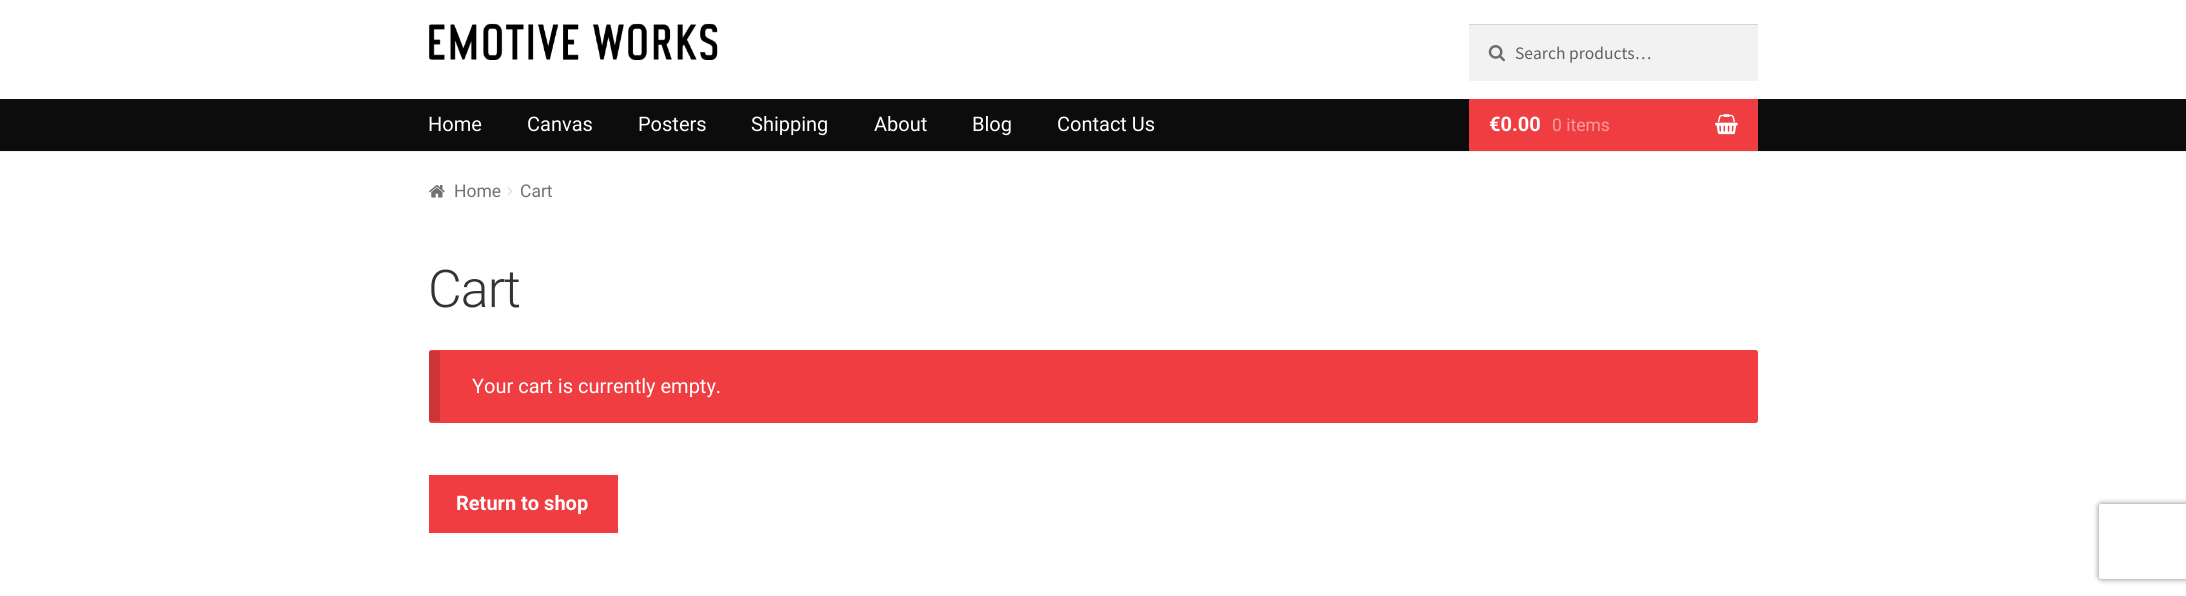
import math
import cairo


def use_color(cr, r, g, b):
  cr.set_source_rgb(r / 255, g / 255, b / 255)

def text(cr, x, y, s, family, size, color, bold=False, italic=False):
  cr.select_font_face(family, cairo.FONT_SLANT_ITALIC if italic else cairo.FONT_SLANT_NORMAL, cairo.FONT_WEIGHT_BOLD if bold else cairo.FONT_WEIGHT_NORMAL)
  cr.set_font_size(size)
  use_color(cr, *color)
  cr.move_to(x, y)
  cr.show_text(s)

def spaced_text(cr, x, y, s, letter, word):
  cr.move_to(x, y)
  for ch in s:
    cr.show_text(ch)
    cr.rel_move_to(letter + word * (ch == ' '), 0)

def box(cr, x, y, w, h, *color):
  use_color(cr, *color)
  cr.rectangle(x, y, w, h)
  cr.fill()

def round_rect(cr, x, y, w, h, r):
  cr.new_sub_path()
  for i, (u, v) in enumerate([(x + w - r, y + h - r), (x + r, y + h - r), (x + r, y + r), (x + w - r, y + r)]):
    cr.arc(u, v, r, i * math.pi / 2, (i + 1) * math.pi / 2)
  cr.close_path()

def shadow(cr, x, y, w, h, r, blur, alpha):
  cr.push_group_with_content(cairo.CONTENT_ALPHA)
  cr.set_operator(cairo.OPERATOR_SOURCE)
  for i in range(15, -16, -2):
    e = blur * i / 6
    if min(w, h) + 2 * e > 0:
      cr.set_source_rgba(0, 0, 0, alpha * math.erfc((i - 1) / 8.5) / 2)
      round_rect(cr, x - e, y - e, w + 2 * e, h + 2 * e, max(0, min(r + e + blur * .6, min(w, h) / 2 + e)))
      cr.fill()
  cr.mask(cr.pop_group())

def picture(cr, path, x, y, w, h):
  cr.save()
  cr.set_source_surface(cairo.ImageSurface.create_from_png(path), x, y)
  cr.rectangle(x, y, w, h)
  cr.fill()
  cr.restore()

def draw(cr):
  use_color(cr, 255, 255, 255)
  cr.paint()
  box(cr, 0, 151, 2186, 1, 240, 240, 240)
  picture(cr, "img_01.png", 428, 23, 290, 37)
  box(cr, 1469, 25, 289, 56, 242, 242, 242)
  picture(cr, "img_02.png", 1488, 45, 17, 17)
  box(cr, 1469, 24, 289, 1, 212, 212, 212)
  box(cr, 0, 99, 2186, 52, 12, 12, 12)
  box(cr, 1469, 99, 289, 52, 240, 61, 65)
  picture(cr, "img_03.png", 1715, 114, 23, 21)
  picture(cr, "img_04.png", 429, 185, 16, 13)
  picture(cr, "img_05.png", 507, 187, 6, 9)
  round_rect(cr, 429, 350, 1329, 73, 2.5)
  cr.fill()
  cr.set_source_rgba(0, 0, 0, 0.15)
  cr.rectangle(429, 351, 11, 70)
  cr.fill()
  box(cr, 429, 475, 189, 58, 240, 61, 65)
  cr.save()
  cr.set_fill_rule(cairo.FILL_RULE_EVEN_ODD)
  cr.new_path()
  cr.move_to(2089, 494)
  cr.line_to(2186, 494)
  cr.line_to(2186, 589)
  cr.line_to(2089, 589)
  cr.close_path()
  cr.move_to(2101.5, 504)
  cr.line_to(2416.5, 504)
  cr.curve_to(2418, 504, 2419, 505, 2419, 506.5)
  cr.line_to(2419, 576.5)
  cr.curve_to(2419, 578, 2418, 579, 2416.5, 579)
  cr.line_to(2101.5, 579)
  cr.curve_to(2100, 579, 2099, 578, 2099, 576.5)
  cr.line_to(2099, 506.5)
  cr.curve_to(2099, 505, 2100, 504, 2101.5, 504)
  cr.close_path()
  cr.clip()
  use_color(cr, 128, 128, 128)
  shadow(cr, 2099, 504, 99, 75, 2.5, 3, 1)
  cr.restore()
  text(cr, 1515, 59, "Search products…", "Source Sans Pro", 17.5, (97, 97, 97))
  text(cr, 428, 131, "Home", "Roboto", 20, (255, 255, 255))
  text(cr, 527, 131, "Canvas", "Roboto", 20, (255, 255, 255))
  text(cr, 638, 131, "Posters", "Roboto", 20, (255, 255, 255))
  text(cr, 751, 131, "Shipping", "Roboto", 20, (255, 255, 255))
  text(cr, 874, 131, "About", "Roboto", 20, (255, 255, 255))
  text(cr, 972, 131, "Blog", "Roboto", 20, (255, 255, 255))
  text(cr, 1057, 131, "Contact Us", "Roboto", 20, (255, 255, 255))
  text(cr, 1489, 131, "€0.00", "Roboto", 20, (255, 255, 255), bold=True)
  text(cr, 1552, 131, "0 items", "Roboto", 17.5, (248, 158, 160))
  text(cr, 454, 197, "Home", "Roboto", 17.5, (114, 114, 114))
  text(cr, 520, 197, "Cart", "Roboto", 17.5, (114, 114, 114))
  cr.select_font_face("Roboto Light")
  cr.set_font_size(52)
  use_color(cr, 51, 51, 51)
  spaced_text(cr, 428, 307, "Cart", -1, 0)
  text(cr, 472, 393, "Your cart is currently empty.", "Roboto", 20, (255, 255, 255))
  text(cr, 456, 510, "Return to shop", "Roboto", 20, (255, 255, 255), bold=True)


surface = cairo.ImageSurface(cairo.FORMAT_RGB24, 2186, 596)
cr = cairo.Context(surface)
options = cairo.FontOptions()
options.set_hint_metrics(cairo.HINT_METRICS_OFF)
options.set_hint_style(cairo.HINT_STYLE_NONE)
cr.set_font_options(options)
cr.set_miter_limit(4)
draw(cr)
surface.write_to_png("out.png")
